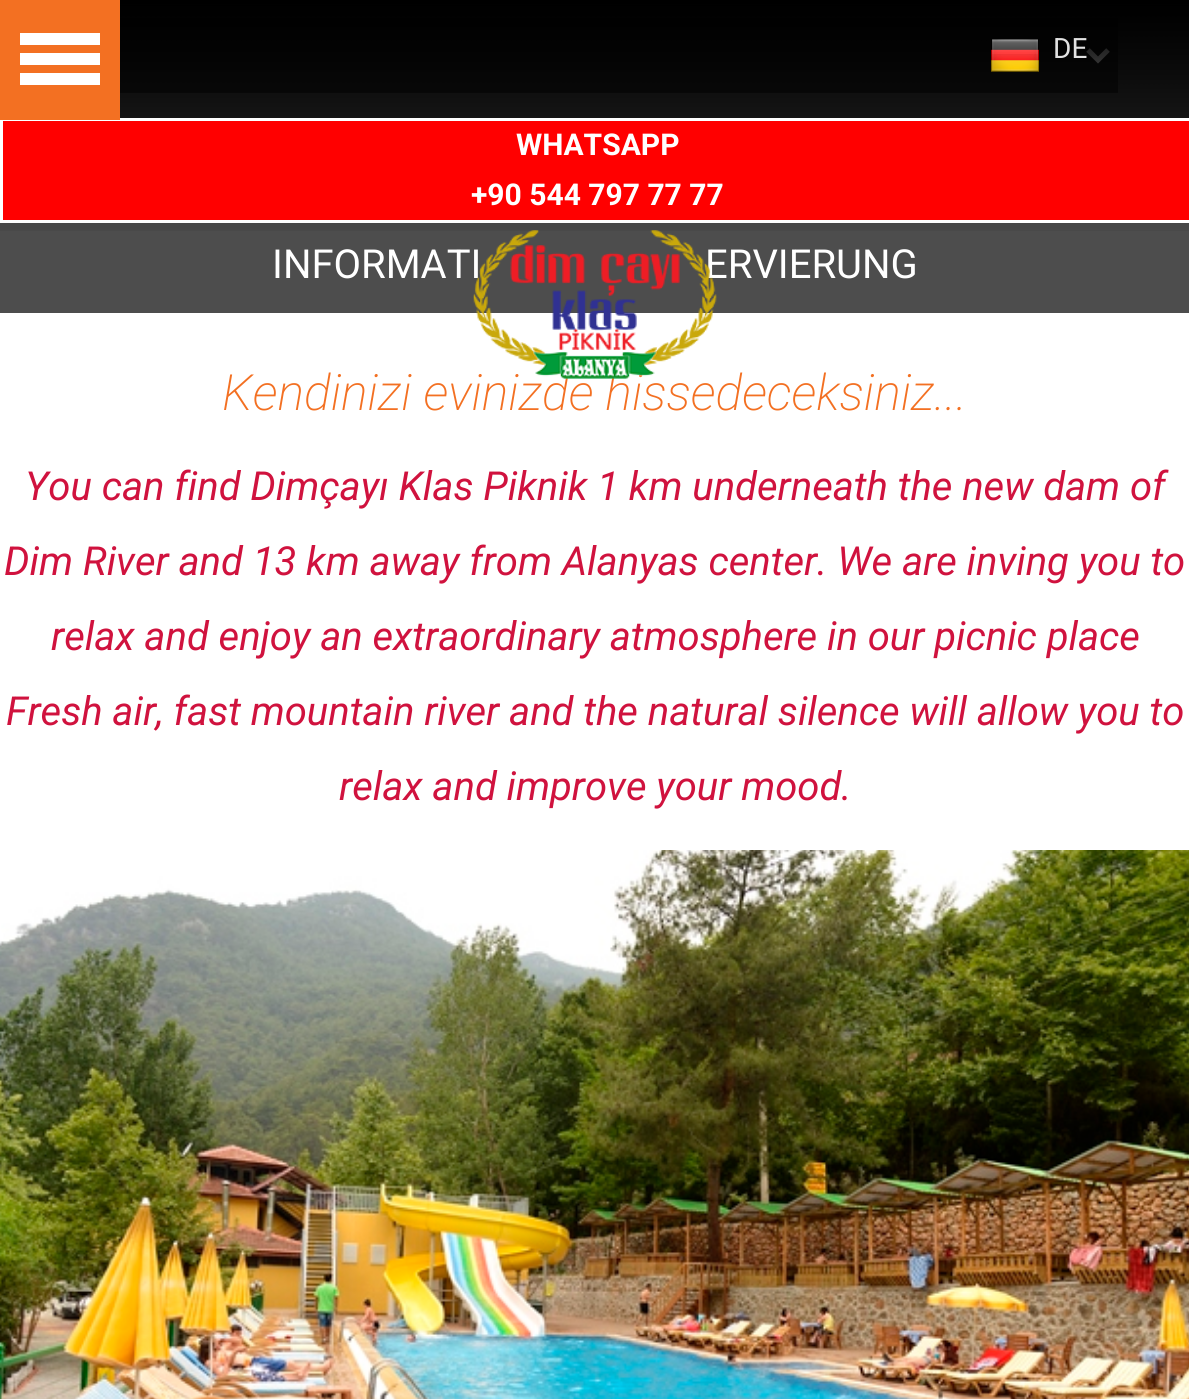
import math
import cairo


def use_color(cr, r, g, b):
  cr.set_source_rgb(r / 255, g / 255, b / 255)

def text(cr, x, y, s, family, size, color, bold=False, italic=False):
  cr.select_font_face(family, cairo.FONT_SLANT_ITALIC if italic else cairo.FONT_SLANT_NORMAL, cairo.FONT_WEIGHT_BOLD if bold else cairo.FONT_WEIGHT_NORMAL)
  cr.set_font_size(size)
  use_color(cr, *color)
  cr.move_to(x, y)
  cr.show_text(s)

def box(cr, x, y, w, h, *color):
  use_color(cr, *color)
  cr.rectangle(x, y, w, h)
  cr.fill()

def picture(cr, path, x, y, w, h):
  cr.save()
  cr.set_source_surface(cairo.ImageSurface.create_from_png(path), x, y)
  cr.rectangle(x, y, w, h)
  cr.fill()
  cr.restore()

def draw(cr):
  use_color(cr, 255, 255, 255)
  cr.paint()
  box(cr, 120, 5, 1069, 113, 46, 46, 46)
  box(cr, 120, 18, 998, 75, 23, 23, 23)
  cr.new_path()
  cr.move_to(1088, 50)
  cr.line_to(1098, 60)
  cr.line_to(1108, 50)
  use_color(cr, 255, 255, 255)
  cr.set_line_width(5)
  cr.stroke()
  box(cr, 0, 223, 1189, 90, 77, 77, 77)
  picture(cr, "img_01.png", 0, 0, 1189, 231)
  use_color(cr, 255, 0, 0)
  cr.rectangle(1.5, 119.5, 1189, 102)
  cr.fill_preserve()
  use_color(cr, 255, 255, 255)
  cr.set_line_width(3)
  cr.stroke()
  box(cr, 0, 0, 120, 120, 243, 112, 34)
  box(cr, 20, 73, 80, 12, 255, 255, 255)
  box(cr, 20, 33, 80, 12, 255, 255, 255)
  box(cr, 20, 53, 80, 12, 255, 255, 255)
  picture(cr, "img_02.png", 991, 39, 48, 33)
  picture(cr, "img_04.png", 0, 850, 1189, 549)
  text(cr, 1053, 58, "DE", "Roboto", 28, (226, 226, 226))
  text(cr, 516, 155, "WHATSAPP", "Roboto", 30, (255, 255, 255), bold=True)
  text(cr, 471, 205, "+90 544 797 77 77", "Roboto", 30, (255, 255, 255), bold=True)
  text(cr, 272, 278, "INFORMATI", "Roboto", 40, (255, 255, 255))
  text(cr, 705, 278, "ERVIERUNG", "Roboto", 40, (255, 255, 255))
  text(cr, 222, 410, "Kendinizi evinizde hissedeceksiniz...", "Roboto ExtraLight", 50, (243, 112, 34), italic=True)
  picture(cr, "img_03.png", 473, 230, 244, 149)
  text(cr, 25, 500, "You can find Dimçayı Klas Piknik 1 km underneath the new dam of", "Roboto", 40, (208, 18, 62), italic=True)
  text(cr, 4, 575, "Dim River and 13 km away from Alanyas center. We are inving you to", "Roboto", 40, (208, 18, 62), italic=True)
  text(cr, 51, 650, "relax and enjoy an extraordinary atmosphere in our picnic place", "Roboto", 40, (208, 18, 62), italic=True)
  text(cr, 6, 725, "Fresh air, fast mountain river and the natural silence will allow you to", "Roboto", 40, (208, 18, 62), italic=True)
  text(cr, 339, 800, "relax and improve your mood.", "Roboto", 40, (208, 18, 62), italic=True)


surface = cairo.ImageSurface(cairo.FORMAT_RGB24, 1189, 1399)
cr = cairo.Context(surface)
options = cairo.FontOptions()
options.set_hint_metrics(cairo.HINT_METRICS_OFF)
options.set_hint_style(cairo.HINT_STYLE_NONE)
cr.set_font_options(options)
cr.set_miter_limit(4)
draw(cr)
surface.write_to_png("out.png")
